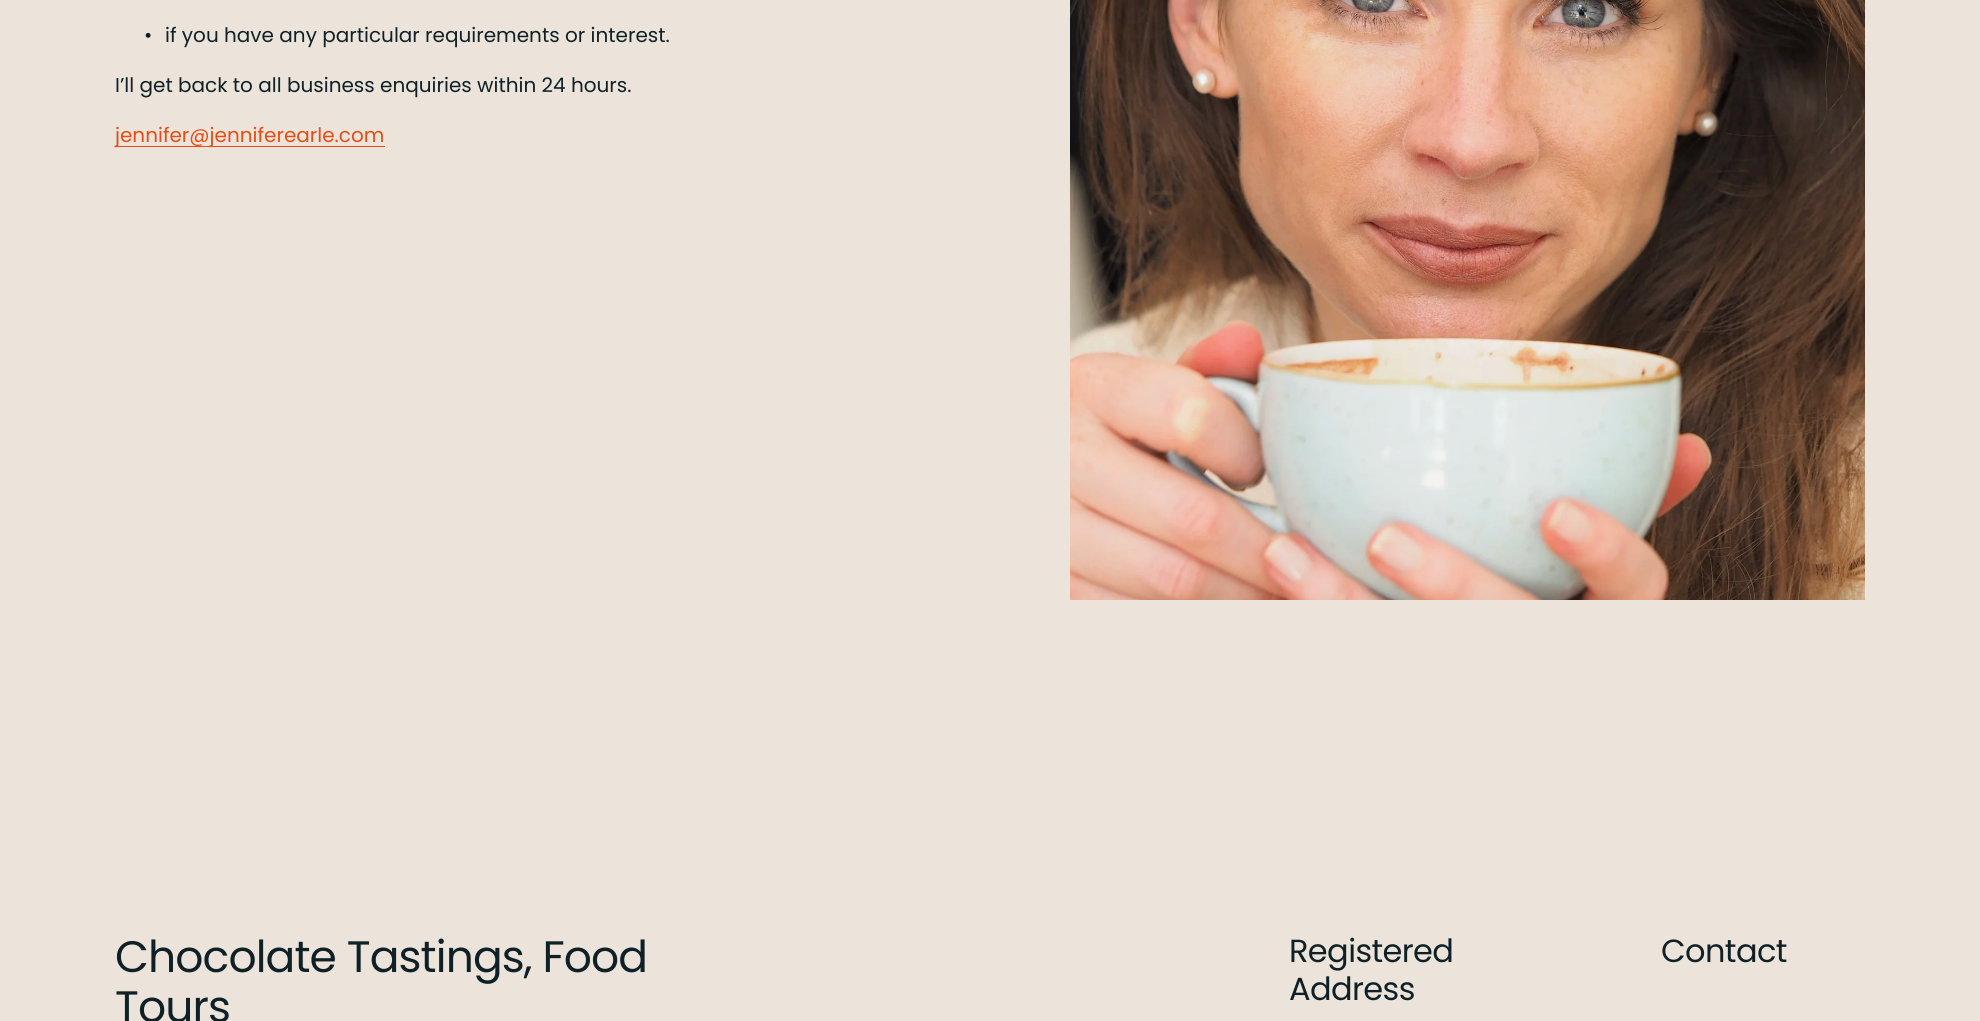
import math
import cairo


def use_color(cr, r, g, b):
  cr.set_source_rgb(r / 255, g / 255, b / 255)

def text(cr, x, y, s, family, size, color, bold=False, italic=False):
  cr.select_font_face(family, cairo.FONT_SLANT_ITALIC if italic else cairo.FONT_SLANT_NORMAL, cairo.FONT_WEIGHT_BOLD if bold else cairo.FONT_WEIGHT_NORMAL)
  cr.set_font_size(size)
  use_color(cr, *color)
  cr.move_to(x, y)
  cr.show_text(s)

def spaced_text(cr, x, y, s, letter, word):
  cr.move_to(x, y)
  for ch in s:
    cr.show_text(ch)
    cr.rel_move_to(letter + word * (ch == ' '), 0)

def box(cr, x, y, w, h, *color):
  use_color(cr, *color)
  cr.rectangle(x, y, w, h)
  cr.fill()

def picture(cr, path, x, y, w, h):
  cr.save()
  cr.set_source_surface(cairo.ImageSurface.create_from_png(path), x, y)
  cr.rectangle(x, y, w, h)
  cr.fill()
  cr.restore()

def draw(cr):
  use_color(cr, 236, 228, 218)
  cr.paint()
  box(cr, 115, 146, 270, 1, 229, 77, 21)
  picture(cr, "img_01.png", 1070, 0, 795, 600)
  text(cr, 144, 42, "•", "Poppins", 20, (15, 33, 39))
  text(cr, 165, 42, "if you have any particular requirements or interest.", "Poppins", 20, (15, 33, 39))
  text(cr, 115, 92, "I’ll get back to all business enquiries within 24 hours.", "Poppins", 20, (15, 33, 39))
  text(cr, 115, 142, "jennifer@jenniferearle.com", "Poppins", 20, (229, 77, 21))
  cr.set_font_size(44)
  use_color(cr, 15, 33, 39)
  spaced_text(cr, 115, 972, "Chocolate Tastings, Food", -0.9, 0)
  spaced_text(cr, 115, 1022, "Tours", -0.9, 0)
  cr.set_font_size(32)
  spaced_text(cr, 1289, 962, "Registered", -0.6, 0)
  spaced_text(cr, 1289, 1000, "Address", -0.6, 0)
  spaced_text(cr, 1661, 962, "Contact", -0.6, 0)


surface = cairo.ImageSurface(cairo.FORMAT_RGB24, 1980, 1021)
cr = cairo.Context(surface)
options = cairo.FontOptions()
options.set_hint_metrics(cairo.HINT_METRICS_OFF)
options.set_hint_style(cairo.HINT_STYLE_NONE)
cr.set_font_options(options)
cr.set_miter_limit(4)
draw(cr)
surface.write_to_png("out.png")
